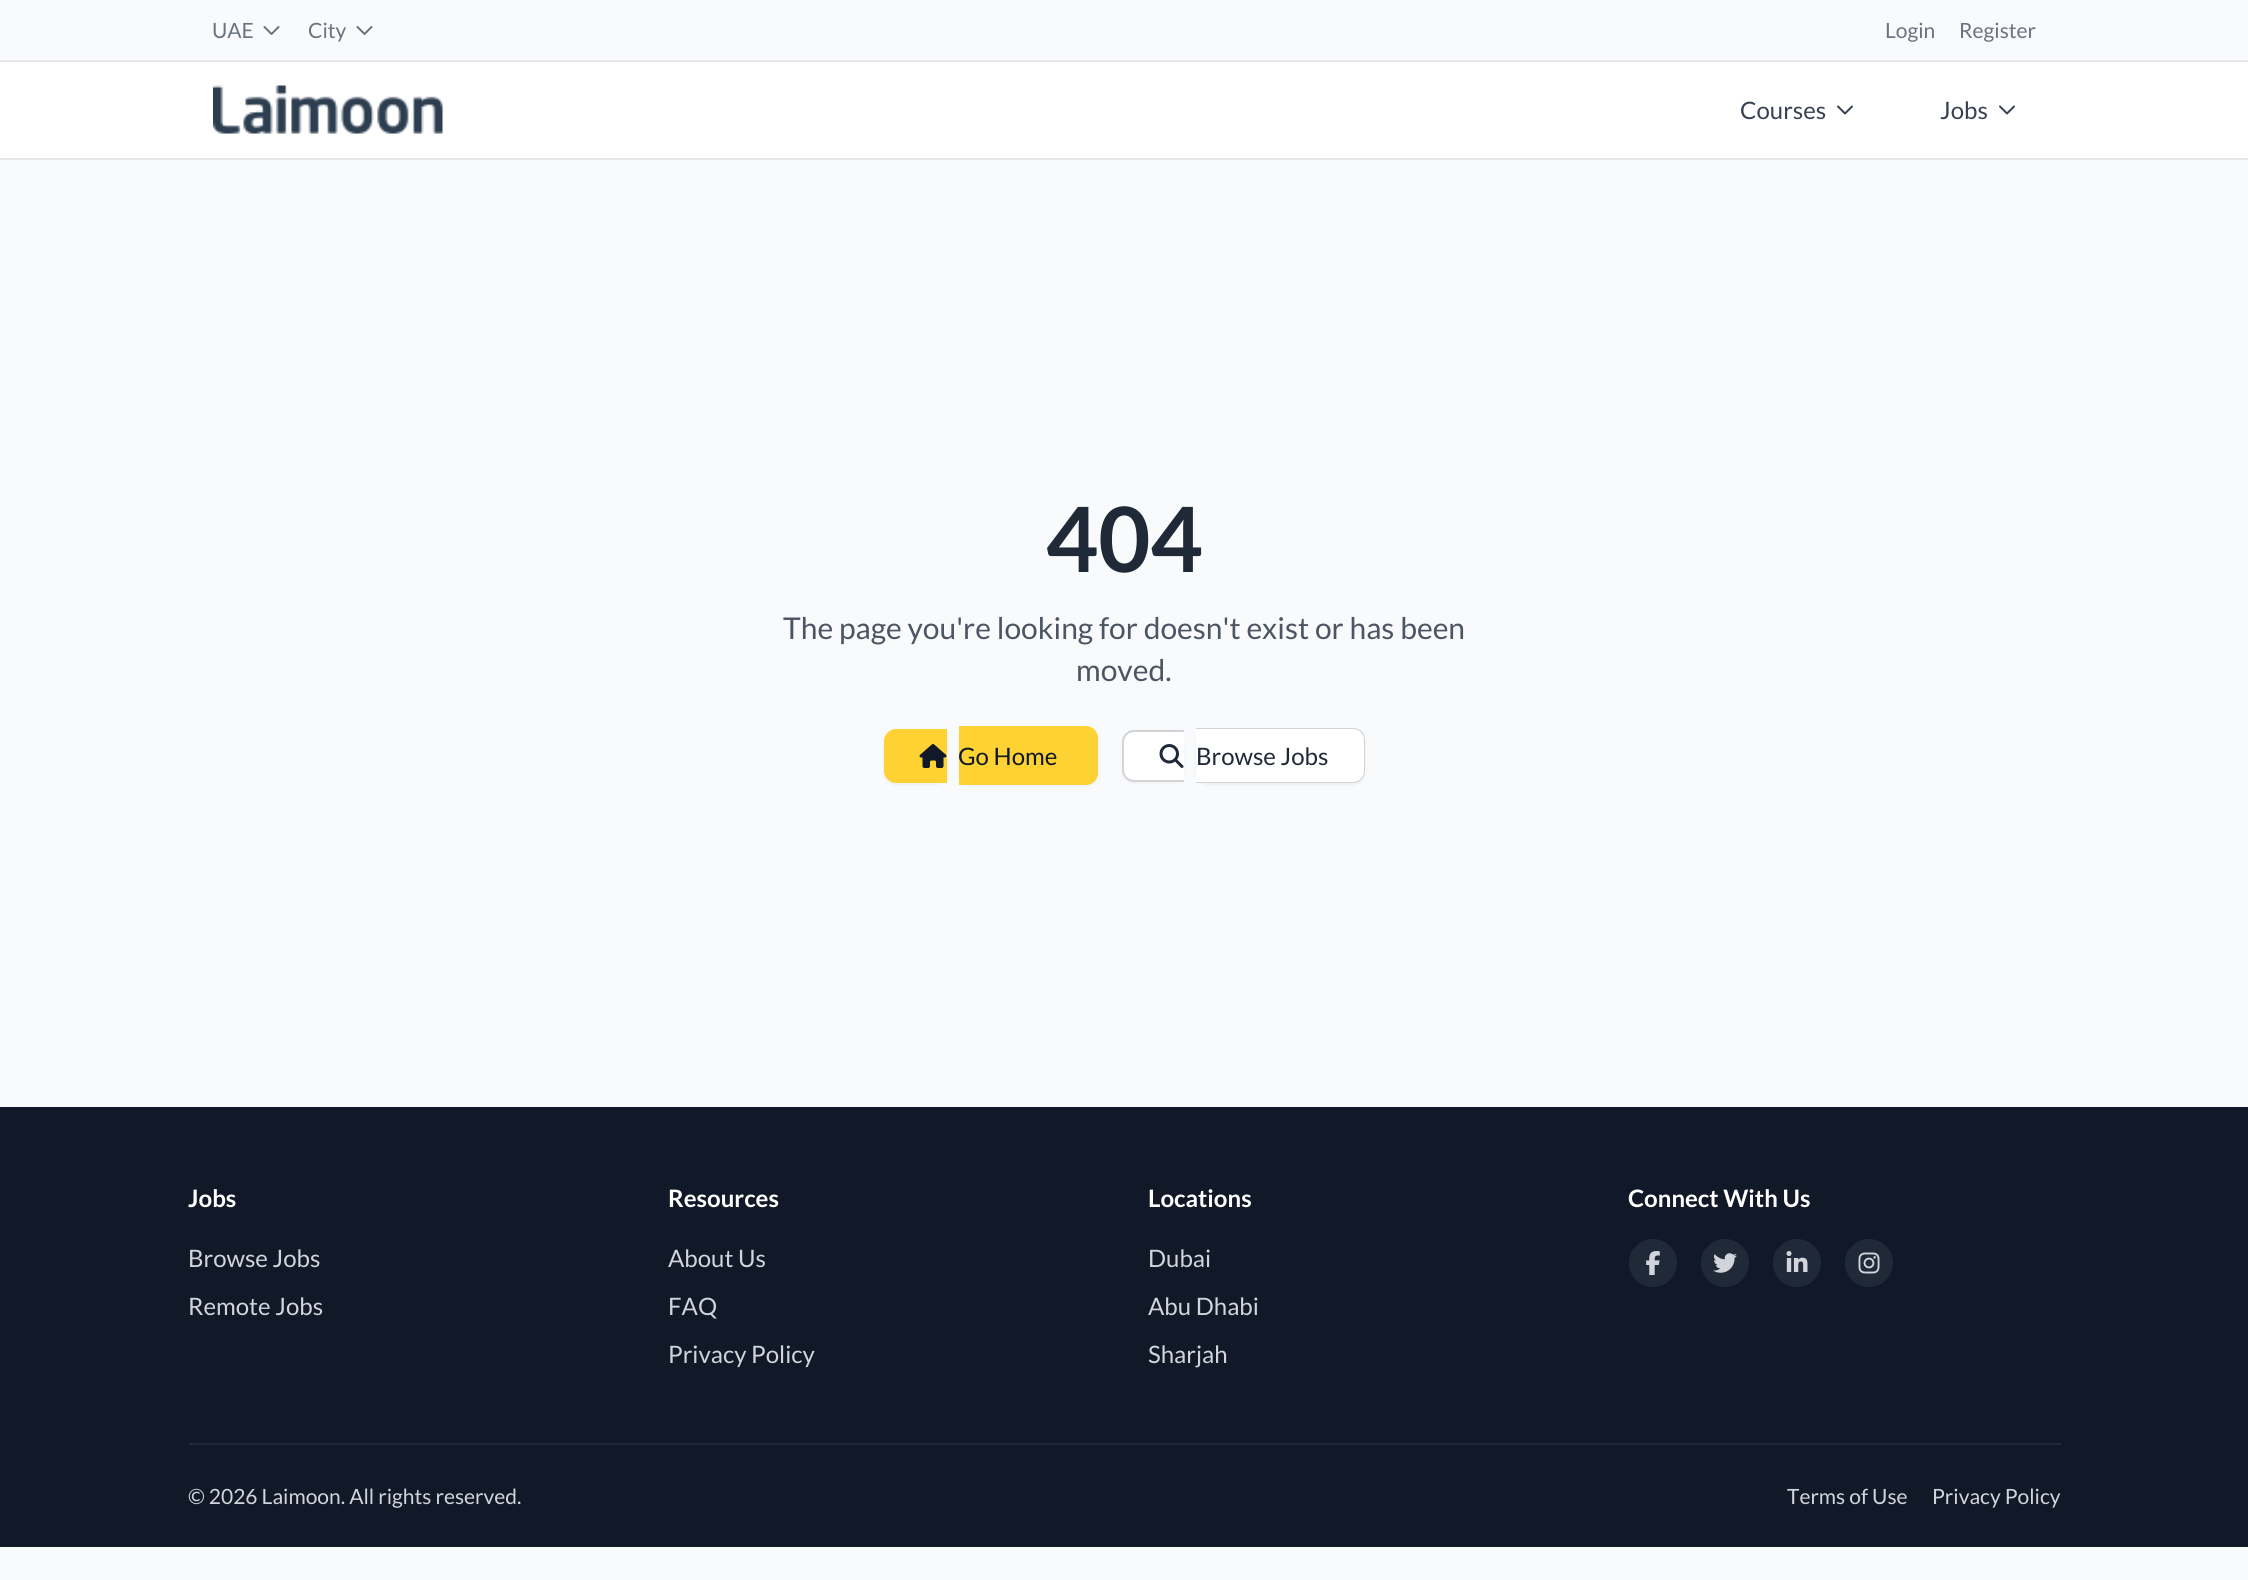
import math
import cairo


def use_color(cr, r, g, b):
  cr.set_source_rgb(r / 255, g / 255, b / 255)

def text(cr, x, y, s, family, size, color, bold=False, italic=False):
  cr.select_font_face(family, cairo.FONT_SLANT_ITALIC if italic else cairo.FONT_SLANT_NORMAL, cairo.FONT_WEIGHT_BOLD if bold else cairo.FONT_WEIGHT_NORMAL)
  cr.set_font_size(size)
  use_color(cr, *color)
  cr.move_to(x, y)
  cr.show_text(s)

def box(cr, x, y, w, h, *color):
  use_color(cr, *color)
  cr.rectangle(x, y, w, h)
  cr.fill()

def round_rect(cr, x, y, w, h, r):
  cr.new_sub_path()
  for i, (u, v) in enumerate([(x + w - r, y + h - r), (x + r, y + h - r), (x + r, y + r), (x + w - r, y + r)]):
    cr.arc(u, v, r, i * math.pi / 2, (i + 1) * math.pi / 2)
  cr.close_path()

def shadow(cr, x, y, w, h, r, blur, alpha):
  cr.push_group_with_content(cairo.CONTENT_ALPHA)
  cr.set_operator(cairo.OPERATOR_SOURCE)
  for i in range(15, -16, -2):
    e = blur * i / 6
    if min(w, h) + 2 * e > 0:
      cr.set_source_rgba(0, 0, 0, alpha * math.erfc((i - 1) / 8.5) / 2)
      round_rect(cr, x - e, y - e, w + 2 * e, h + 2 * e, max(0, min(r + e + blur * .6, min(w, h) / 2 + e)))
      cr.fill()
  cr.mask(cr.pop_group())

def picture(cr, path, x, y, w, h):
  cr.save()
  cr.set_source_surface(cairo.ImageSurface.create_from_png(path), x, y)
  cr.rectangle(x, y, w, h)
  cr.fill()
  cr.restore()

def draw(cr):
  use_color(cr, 249, 250, 251)
  cr.paint()
  box(cr, 0, 62, 2248, 96, 255, 255, 255)
  box(cr, 0, 158, 2248, 2, 229, 231, 235)
  box(cr, 0, 60, 2248, 2, 229, 231, 235)
  cr.new_path()
  cr.move_to(278.5, 27)
  cr.line_to(271.5, 34)
  cr.line_to(264.5, 27)
  use_color(cr, 107, 114, 128)
  cr.set_line_cap(cairo.LINE_CAP_ROUND)
  cr.set_line_join(cairo.LINE_JOIN_ROUND)
  cr.stroke()
  cr.new_path()
  cr.move_to(371.5, 27)
  cr.line_to(364.5, 34)
  cr.line_to(357.5, 27)
  cr.stroke()
  picture(cr, "img_01.png", 213, 85, 230, 49)
  cr.new_path()
  cr.move_to(1852, 106.5)
  cr.line_to(1845, 113.5)
  cr.line_to(1838, 106.5)
  use_color(cr, 55, 65, 81)
  cr.stroke()
  cr.new_path()
  cr.move_to(2014, 106.5)
  cr.line_to(2007, 113.5)
  cr.line_to(2000, 106.5)
  cr.stroke()
  use_color(cr, 0, 0, 0)
  shadow(cr, 884, 731, 63, 54, 12, 1.5, 0.05)
  use_color(cr, 255, 210, 51)
  cr.new_path()
  cr.move_to(896, 729)
  cr.line_to(947, 729)
  cr.line_to(947, 783)
  cr.line_to(896, 783)
  cr.curve_to(889.5, 783, 884, 777.5, 884, 771)
  cr.line_to(884, 741)
  cr.curve_to(884, 734.5, 889.5, 729, 896, 729)
  cr.close_path()
  cr.fill()
  use_color(cr, 0, 0, 0)
  shadow(cr, 959, 728, 139, 58, 12, 1.5, 0.05)
  use_color(cr, 255, 210, 51)
  cr.new_path()
  cr.move_to(959, 726)
  cr.line_to(1086, 726)
  cr.curve_to(1092.5, 726, 1098, 731.5, 1098, 738)
  cr.line_to(1098, 773)
  cr.curve_to(1098, 779.5, 1092.5, 785, 1086, 785)
  cr.line_to(959, 785)
  cr.close_path()
  cr.fill()
  picture(cr, "img_02.png", 919, 744, 28, 24)
  use_color(cr, 0, 0, 0)
  shadow(cr, 1122, 732, 62, 51, 12, 1.5, 0.05)
  use_color(cr, 255, 255, 255)
  cr.new_path()
  cr.move_to(1134, 731)
  cr.line_to(1184, 731)
  cr.line_to(1184, 782)
  cr.line_to(1134, 782)
  cr.curve_to(1127.5, 782, 1122, 776.5, 1122, 770)
  cr.line_to(1122, 743)
  cr.curve_to(1122, 736.5, 1127.5, 731, 1134, 731)
  cr.close_path()
  cr.fill()
  cr.set_source_rgba(0.122, 0.161, 0.216, 0.2)
  cr.set_fill_rule(cairo.FILL_RULE_EVEN_ODD)
  cr.new_path()
  cr.move_to(1134, 730)
  cr.line_to(1184, 730)
  cr.line_to(1184, 782)
  cr.line_to(1134, 782)
  cr.curve_to(1127, 782, 1122, 776, 1122, 770)
  cr.line_to(1122, 742)
  cr.curve_to(1122, 736, 1127, 730, 1134, 730)
  cr.close_path()
  cr.move_to(1134, 732)
  cr.line_to(1184, 732)
  cr.line_to(1184, 780)
  cr.line_to(1134, 780)
  cr.curve_to(1128, 780, 1124, 775, 1124, 770)
  cr.line_to(1124, 742)
  cr.curve_to(1124, 737, 1128, 732, 1134, 732)
  cr.close_path()
  cr.fill()
  use_color(cr, 0, 0, 0)
  shadow(cr, 1196, 729, 169, 56, 12, 1.5, 0.05)
  use_color(cr, 255, 255, 255)
  cr.new_path()
  cr.move_to(1196, 728)
  cr.line_to(1353, 728)
  cr.curve_to(1359.5, 728, 1365, 733.5, 1365, 740)
  cr.line_to(1365, 771)
  cr.curve_to(1365, 777.5, 1359.5, 783, 1353, 783)
  cr.line_to(1196, 783)
  cr.close_path()
  cr.fill()
  cr.set_source_rgba(0.122, 0.161, 0.216, 0.2)
  cr.new_path()
  cr.move_to(1196, 728)
  cr.line_to(1353, 728)
  cr.curve_to(1360, 728, 1365, 733, 1365, 740)
  cr.line_to(1365, 771)
  cr.curve_to(1365, 778, 1360, 783, 1353, 783)
  cr.line_to(1196, 783)
  cr.close_path()
  cr.move_to(1196, 729)
  cr.line_to(1353, 729)
  cr.curve_to(1359, 729, 1364, 734, 1364, 740)
  cr.line_to(1364, 771)
  cr.curve_to(1364, 777, 1359, 782, 1353, 782)
  cr.line_to(1196, 782)
  cr.close_path()
  cr.fill()
  picture(cr, "img_03.png", 1159, 744, 25, 24)
  box(cr, 0, 1107, 2248, 440, 17, 24, 39)
  use_color(cr, 31, 41, 55)
  cr.arc(1653, 1263, 24, 0, 2 * math.pi)
  cr.fill()
  picture(cr, "img_04.png", 1646, 1251, 14, 24)
  cr.arc(1725, 1263, 24, 0, 2 * math.pi)
  cr.fill()
  picture(cr, "img_05.png", 1713, 1253, 24, 20)
  cr.arc(1797, 1263, 24, 0, 2 * math.pi)
  cr.fill()
  picture(cr, "img_06.png", 1786, 1251, 22, 21)
  cr.arc(1869, 1263, 24, 0, 2 * math.pi)
  cr.fill()
  picture(cr, "img_07.png", 1858, 1252, 22, 22)
  box(cr, 189, 1443, 1872, 2, 31, 41, 55)
  text(cr, 212, 38, "UAE", "Lato", 21, (107, 114, 128))
  text(cr, 308, 38, "City", "Lato", 21, (107, 114, 128))
  text(cr, 1885, 38, "Login", "Lato", 21, (107, 114, 128))
  text(cr, 1959, 38, "Register", "Lato", 21, (107, 114, 128))
  text(cr, 1740, 119, "Courses", "Lato", 24, (55, 65, 81))
  text(cr, 1940, 119, "Jobs", "Lato", 24, (55, 65, 81))
  text(cr, 1046, 572, "404", "Lato", 90, (31, 41, 55), bold=True)
  text(cr, 783, 639, "The page you're looking for doesn't exist or has been", "Lato", 30, (75, 85, 99))
  text(cr, 1076, 681, "moved.", "Lato", 30, (75, 85, 99))
  text(cr, 958, 765, "Go Home", "Lato", 24, (17, 24, 39))
  text(cr, 1196, 765, "Browse Jobs", "Lato", 24, (31, 41, 55))
  text(cr, 188, 1207, "Jobs", "Lato", 24, (255, 255, 255), bold=True)
  text(cr, 188, 1267, "Browse Jobs", "Lato", 24, (209, 213, 219))
  text(cr, 188, 1315, "Remote Jobs", "Lato", 24, (209, 213, 219))
  text(cr, 668, 1207, "Resources", "Lato", 24, (255, 255, 255), bold=True)
  text(cr, 668, 1267, "About Us", "Lato", 24, (209, 213, 219))
  text(cr, 668, 1315, "FAQ", "Lato", 24, (209, 213, 219))
  text(cr, 668, 1363, "Privacy Policy", "Lato", 24, (209, 213, 219))
  text(cr, 1148, 1207, "Locations", "Lato", 24, (255, 255, 255), bold=True)
  text(cr, 1148, 1267, "Dubai", "Lato", 24, (209, 213, 219))
  text(cr, 1148, 1315, "Abu Dhabi", "Lato", 24, (209, 213, 219))
  text(cr, 1148, 1363, "Sharjah", "Lato", 24, (209, 213, 219))
  text(cr, 1628, 1207, "Connect With Us", "Lato", 24, (255, 255, 255), bold=True)
  text(cr, 188, 1504, "© 2026 Laimoon. All rights reserved.", "Lato", 21, (209, 213, 219))
  text(cr, 1787, 1504, "Terms of Use", "Lato", 21, (209, 213, 219))
  text(cr, 1932, 1504, "Privacy Policy", "Lato", 21, (209, 213, 219))


surface = cairo.ImageSurface(cairo.FORMAT_RGB24, 2248, 1580)
cr = cairo.Context(surface)
options = cairo.FontOptions()
options.set_hint_metrics(cairo.HINT_METRICS_OFF)
options.set_hint_style(cairo.HINT_STYLE_NONE)
cr.set_font_options(options)
cr.set_miter_limit(4)
draw(cr)
surface.write_to_png("out.png")
